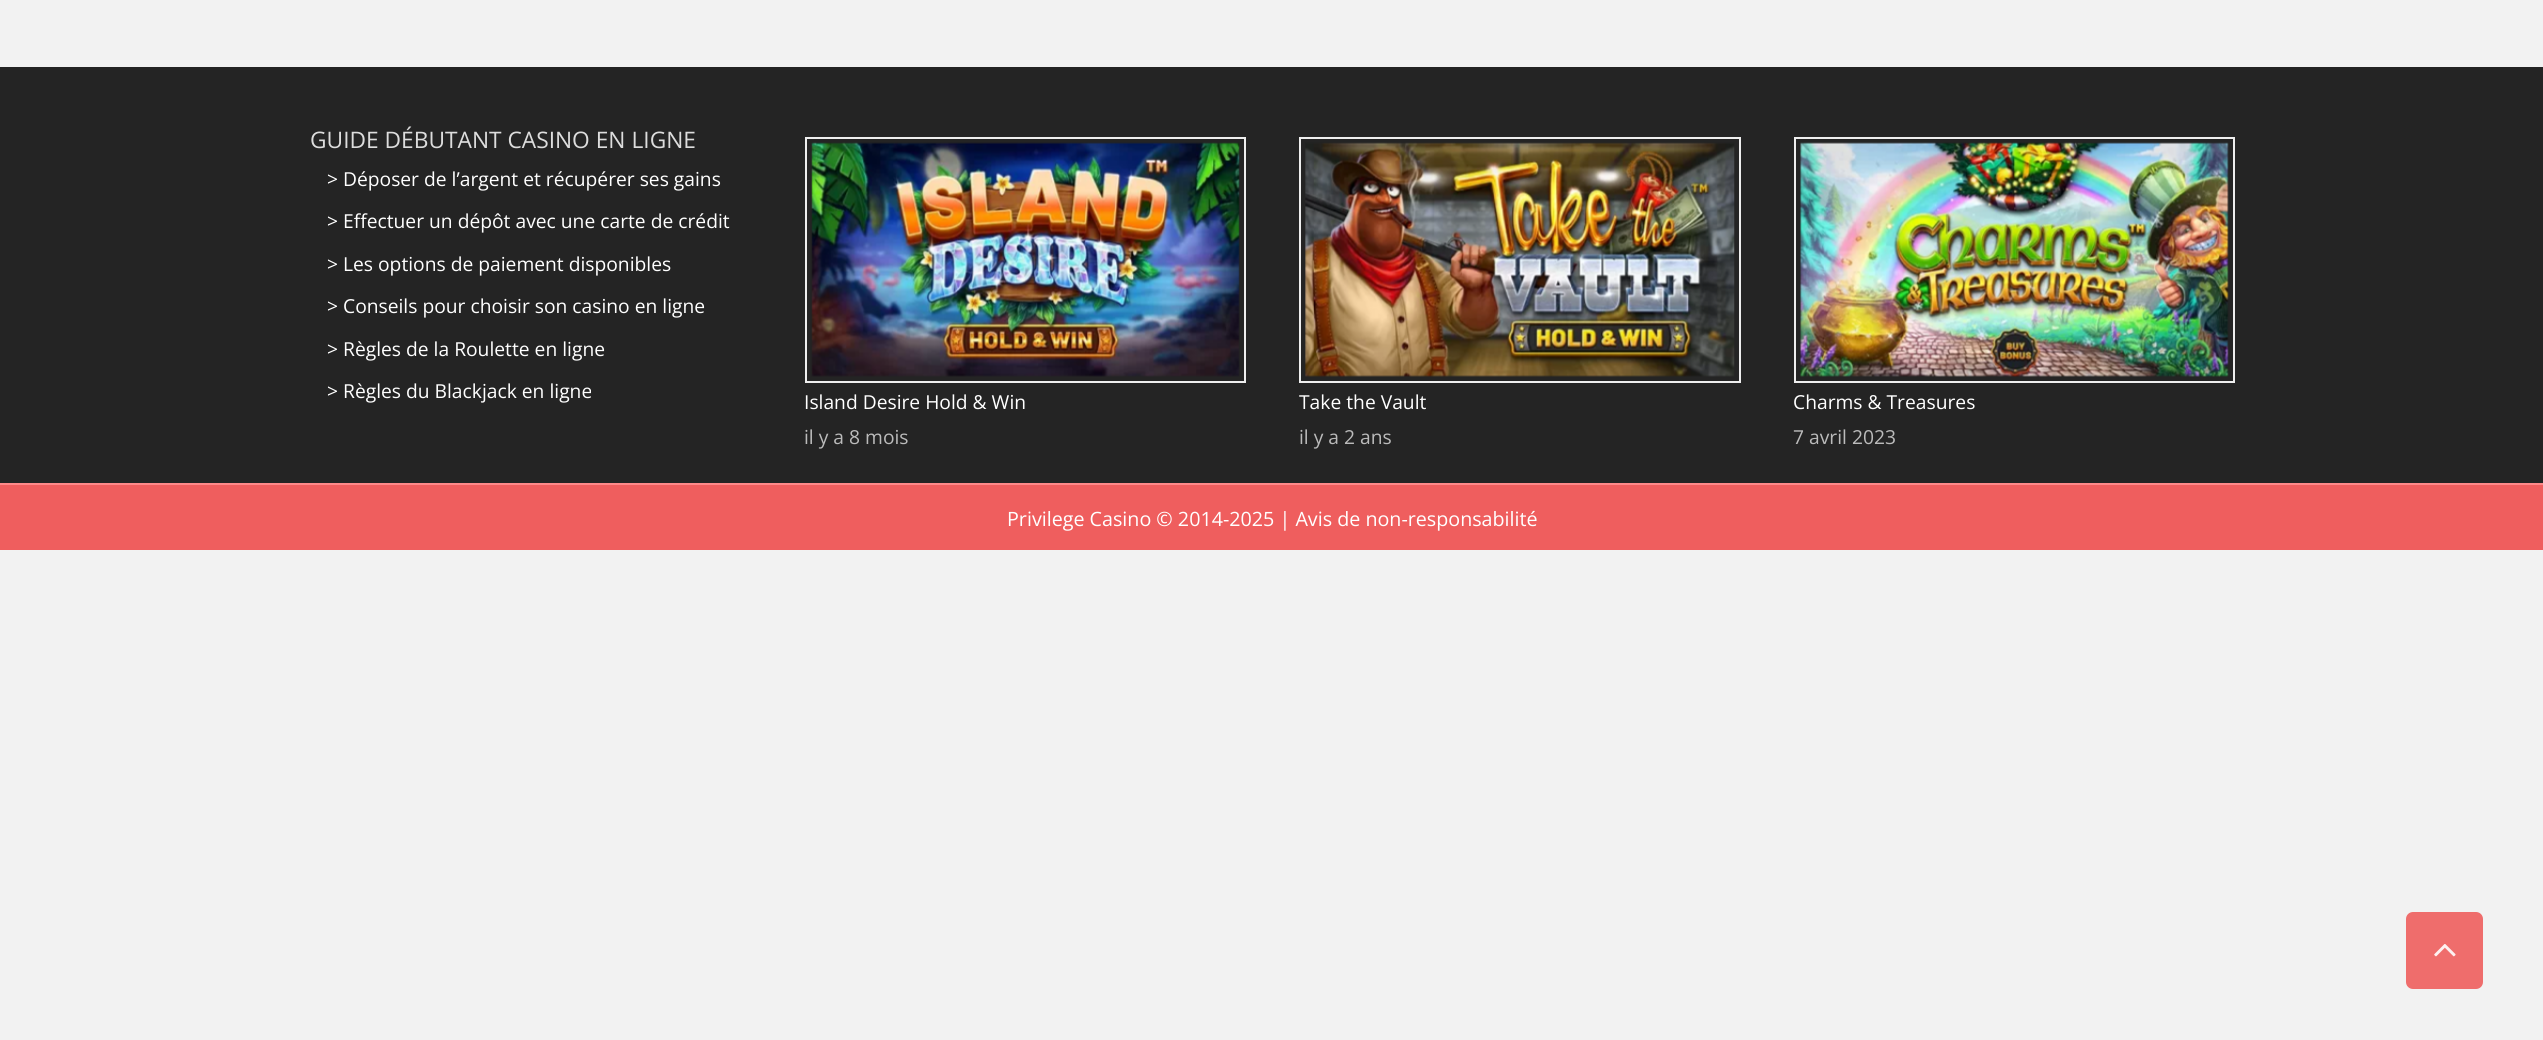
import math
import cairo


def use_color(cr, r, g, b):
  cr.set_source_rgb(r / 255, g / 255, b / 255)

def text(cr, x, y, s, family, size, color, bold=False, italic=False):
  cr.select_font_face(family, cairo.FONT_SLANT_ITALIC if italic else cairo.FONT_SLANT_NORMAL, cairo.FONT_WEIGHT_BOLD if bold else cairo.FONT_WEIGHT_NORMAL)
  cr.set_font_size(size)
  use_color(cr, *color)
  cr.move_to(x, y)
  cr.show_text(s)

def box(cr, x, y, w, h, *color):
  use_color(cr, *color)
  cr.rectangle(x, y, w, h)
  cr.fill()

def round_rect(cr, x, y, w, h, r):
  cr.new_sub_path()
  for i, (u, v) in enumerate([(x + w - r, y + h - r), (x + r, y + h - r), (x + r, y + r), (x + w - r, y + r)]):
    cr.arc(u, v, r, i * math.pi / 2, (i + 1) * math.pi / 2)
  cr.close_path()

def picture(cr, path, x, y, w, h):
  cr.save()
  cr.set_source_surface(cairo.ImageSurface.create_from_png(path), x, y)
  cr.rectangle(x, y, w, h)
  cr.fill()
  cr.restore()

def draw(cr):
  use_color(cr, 242, 242, 242)
  cr.paint()
  box(cr, 0, 67, 2543, 416, 36, 36, 36)
  cr.rectangle(806, 138, 439, 244)
  use_color(cr, 238, 238, 238)
  cr.stroke()
  picture(cr, "img_01.png", 811, 142, 429, 235)
  cr.rectangle(1300, 138, 440, 244)
  cr.stroke()
  picture(cr, "img_02.png", 1305, 142, 430, 235)
  cr.rectangle(1795, 138, 439, 244)
  cr.stroke()
  picture(cr, "img_03.png", 1800, 142, 429, 235)
  box(cr, 0, 485, 2543, 65, 239, 94, 94)
  box(cr, 0, 483, 2543, 2, 255, 137, 137)
  use_color(cr, 239, 109, 108)
  round_rect(cr, 2406, 912, 77, 77, 7)
  cr.fill()
  picture(cr, "img_04.png", 2434, 944, 22, 13)
  text(cr, 310, 148, "GUIDE DÉBUTANT CASINO EN LIGNE", "Open Sans", 22.75, (221, 221, 221))
  text(cr, 327, 186, "> Déposer de l’argent et récupérer ses gains", "Open Sans", 19.25, (255, 255, 255))
  text(cr, 327, 228, "> Effectuer un dépôt avec une carte de crédit", "Open Sans", 19.25, (255, 255, 255))
  text(cr, 327, 271, "> Les options de paiement disponibles", "Open Sans", 19.25, (255, 255, 255))
  text(cr, 327, 313, "> Conseils pour choisir son casino en ligne", "Open Sans", 19.25, (255, 255, 255))
  text(cr, 327, 356, "> Règles de la Roulette en ligne", "Open Sans", 19.25, (255, 255, 255))
  text(cr, 327, 398, "> Règles du Blackjack en ligne", "Open Sans", 19.25, (255, 255, 255))
  text(cr, 804, 409, "Island Desire Hold & Win", "Open Sans", 19.25, (255, 255, 255))
  text(cr, 804, 444, "il y a 8 mois", "Open Sans", 19.25, (187, 187, 187))
  text(cr, 1299, 409, "Take the Vault", "Open Sans", 19.25, (255, 255, 255))
  text(cr, 1299, 444, "il y a 2 ans", "Open Sans", 19.25, (187, 187, 187))
  text(cr, 1793, 409, "Charms & Treasures", "Open Sans", 19.25, (255, 255, 255))
  text(cr, 1793, 444, "7 avril 2023", "Open Sans", 19.25, (187, 187, 187))
  text(cr, 1007, 526, "Privilege Casino © 2014-2025 | Avis de non-responsabilité", "Open Sans", 19.7, (255, 255, 255))


surface = cairo.ImageSurface(cairo.FORMAT_RGB24, 2543, 1040)
cr = cairo.Context(surface)
options = cairo.FontOptions()
options.set_hint_metrics(cairo.HINT_METRICS_OFF)
options.set_hint_style(cairo.HINT_STYLE_NONE)
cr.set_font_options(options)
cr.set_miter_limit(4)
draw(cr)
surface.write_to_png("out.png")
